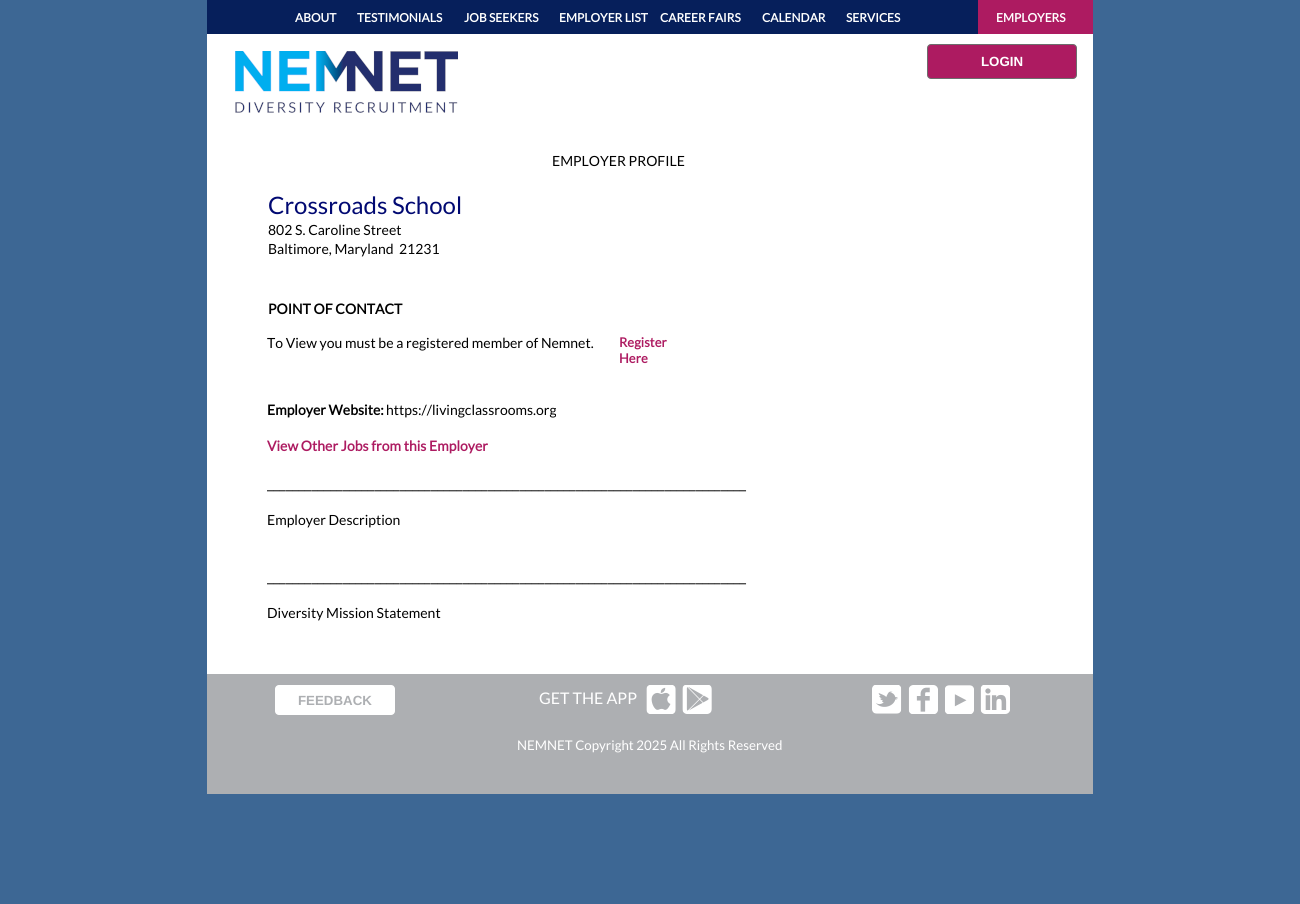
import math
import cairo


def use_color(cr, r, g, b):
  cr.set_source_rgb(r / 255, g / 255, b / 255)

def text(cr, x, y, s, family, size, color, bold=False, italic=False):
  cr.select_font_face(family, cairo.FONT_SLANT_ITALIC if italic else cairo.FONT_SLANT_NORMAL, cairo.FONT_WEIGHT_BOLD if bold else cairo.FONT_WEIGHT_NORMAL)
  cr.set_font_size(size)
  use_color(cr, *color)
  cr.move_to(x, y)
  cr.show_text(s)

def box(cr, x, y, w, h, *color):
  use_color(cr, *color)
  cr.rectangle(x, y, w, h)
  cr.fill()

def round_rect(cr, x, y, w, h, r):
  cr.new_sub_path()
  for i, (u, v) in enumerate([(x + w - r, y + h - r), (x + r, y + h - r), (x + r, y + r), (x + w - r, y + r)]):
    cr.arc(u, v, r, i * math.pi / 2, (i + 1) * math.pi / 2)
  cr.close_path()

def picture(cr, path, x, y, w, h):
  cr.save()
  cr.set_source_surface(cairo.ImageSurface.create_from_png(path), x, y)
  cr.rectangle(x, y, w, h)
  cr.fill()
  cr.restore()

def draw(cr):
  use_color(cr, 61, 103, 148)
  cr.paint()
  box(cr, 207, 34, 886, 640, 255, 255, 255)
  box(cr, 207, 0, 771, 34, 6, 31, 91)
  box(cr, 978, 0, 115, 34, 173, 27, 97)
  picture(cr, "img_01.png", 235, 51, 223, 62)
  round_rect(cr, 927.5, 44.5, 149, 34, 3.5)
  cr.fill_preserve()
  use_color(cr, 109, 109, 109)
  cr.set_line_width(1)
  cr.stroke()
  box(cr, 207, 674, 886, 120, 173, 175, 178)
  use_color(cr, 255, 255, 255)
  round_rect(cr, 275, 685, 120, 30, 4)
  cr.fill()
  picture(cr, "img_02.png", 646, 685, 30, 29)
  picture(cr, "img_03.png", 682, 685, 30, 29)
  picture(cr, "img_04.png", 872, 685, 30, 29)
  picture(cr, "img_05.png", 908, 685, 30, 29)
  picture(cr, "img_06.png", 945, 685, 29, 29)
  picture(cr, "img_07.png", 980, 685, 30, 29)
  text(cr, 295, 22, "ABOUT", "Lato", 12, (255, 255, 255), bold=True)
  text(cr, 357, 22, "TESTIMONIALS", "Lato", 12, (255, 255, 255), bold=True)
  text(cr, 464, 22, "JOB SEEKERS", "Lato", 12, (255, 255, 255), bold=True)
  text(cr, 559, 22, "EMPLOYER LIST", "Lato", 12, (255, 255, 255), bold=True)
  text(cr, 660, 22, "CAREER FAIRS", "Lato", 12, (255, 255, 255), bold=True)
  text(cr, 762, 22, "CALENDAR", "Lato", 12, (255, 255, 255), bold=True)
  text(cr, 846, 22, "SERVICES", "Lato", 12, (255, 255, 255), bold=True)
  text(cr, 996, 22, "EMPLOYERS", "Lato", 12, (255, 255, 255), bold=True)
  text(cr, 981, 66, "LOGIN", "Liberation Sans", 13.3, (255, 255, 255), bold=True)
  text(cr, 552, 166, "EMPLOYER PROFILE", "Lato", 14, (0, 0, 0))
  text(cr, 268, 214, "Crossroads School", "Lato", 24, (1, 9, 114))
  text(cr, 268, 235, "802 S. Caroline Street", "Lato", 14, (0, 0, 0))
  text(cr, 268, 254, "Baltimore, Maryland  21231", "Lato", 14, (0, 0, 0))
  text(cr, 268, 314, "POINT OF CONTACT", "Lato", 14, (0, 0, 0), bold=True)
  text(cr, 267, 348, "To View you must be a registered member of Nemnet.", "Lato", 14, (0, 0, 0))
  text(cr, 619, 347, "Register", "Lato", 13, (173, 27, 97), bold=True)
  text(cr, 619, 363, "Here", "Lato", 13, (173, 27, 97), bold=True)
  text(cr, 267, 415, "Employer Website:", "Lato", 14, (0, 0, 0), bold=True)
  text(cr, 386, 415, "https://livingclassrooms.org", "Lato", 14, (0, 0, 0))
  text(cr, 267, 451, "View Other Jobs from this Employer", "Lato", 14, (173, 27, 97), bold=True)
  text(cr, 267, 489, "____________________________________________________________________________", "Lato", 16, (0, 0, 0))
  text(cr, 267, 525, "Employer Description", "Lato", 14, (0, 0, 0))
  text(cr, 267, 582, "____________________________________________________________________________", "Lato", 16, (0, 0, 0))
  text(cr, 267, 618, "Diversity Mission Statement", "Lato", 14, (0, 0, 0))
  text(cr, 298, 705, "FEEDBACK", "Liberation Sans", 13.3, (173, 175, 178), bold=True)
  text(cr, 539, 704, "GET THE APP", "Lato", 16, (255, 255, 255))
  text(cr, 517, 750, "NEMNET Copyright 2025 All Rights Reserved", "Lato", 13.3, (255, 255, 255))


surface = cairo.ImageSurface(cairo.FORMAT_RGB24, 1300, 904)
cr = cairo.Context(surface)
options = cairo.FontOptions()
options.set_hint_metrics(cairo.HINT_METRICS_OFF)
options.set_hint_style(cairo.HINT_STYLE_NONE)
cr.set_font_options(options)
cr.set_miter_limit(4)
draw(cr)
surface.write_to_png("out.png")
